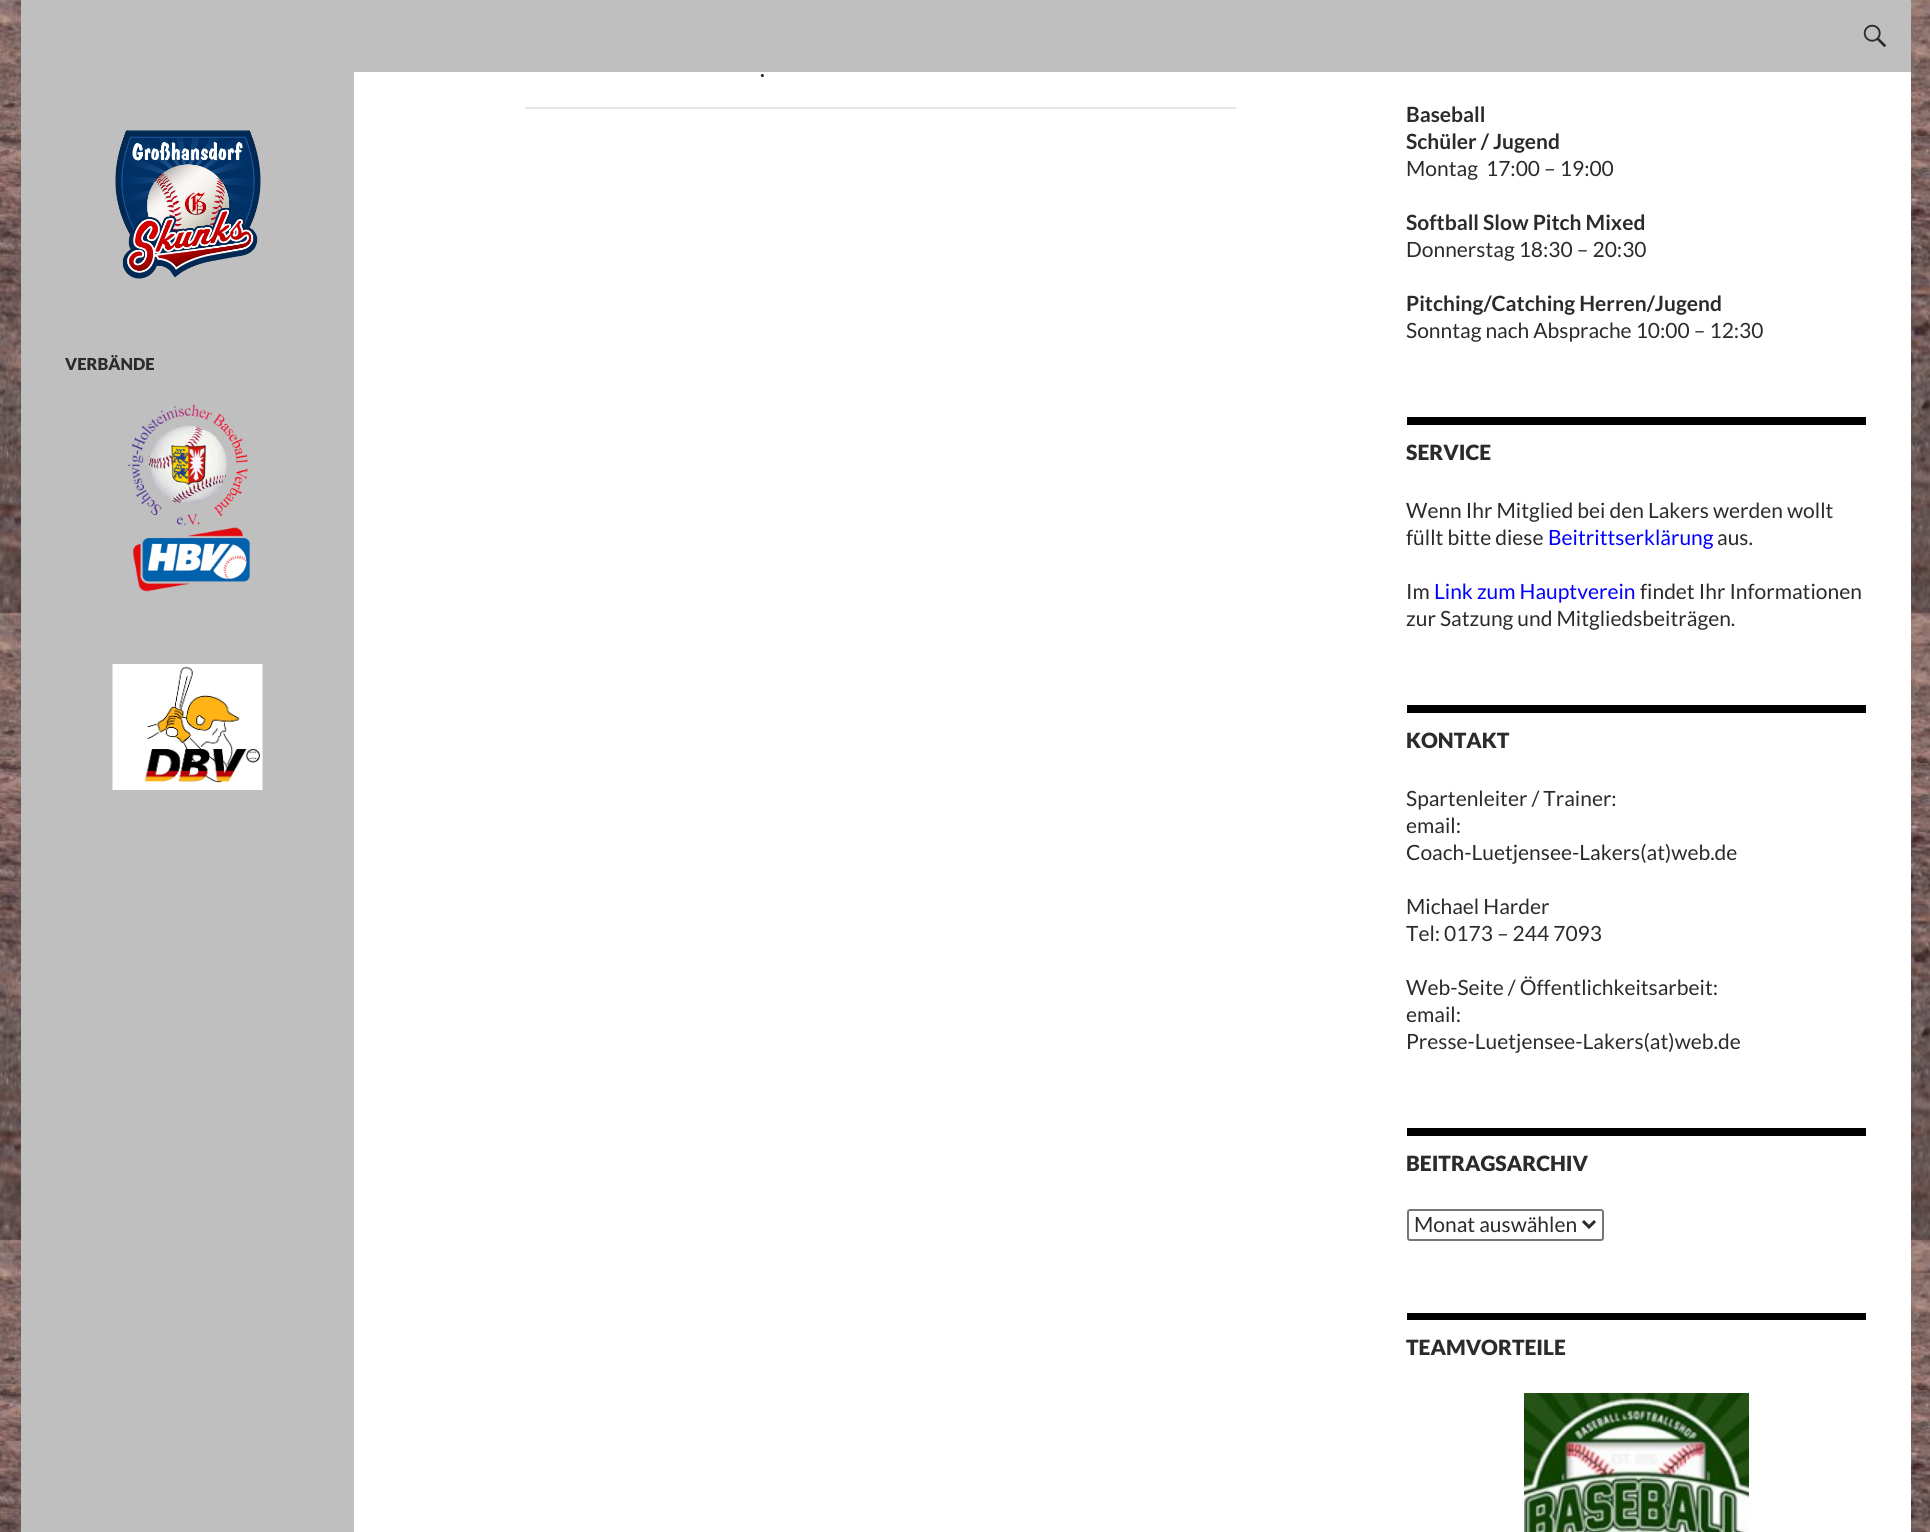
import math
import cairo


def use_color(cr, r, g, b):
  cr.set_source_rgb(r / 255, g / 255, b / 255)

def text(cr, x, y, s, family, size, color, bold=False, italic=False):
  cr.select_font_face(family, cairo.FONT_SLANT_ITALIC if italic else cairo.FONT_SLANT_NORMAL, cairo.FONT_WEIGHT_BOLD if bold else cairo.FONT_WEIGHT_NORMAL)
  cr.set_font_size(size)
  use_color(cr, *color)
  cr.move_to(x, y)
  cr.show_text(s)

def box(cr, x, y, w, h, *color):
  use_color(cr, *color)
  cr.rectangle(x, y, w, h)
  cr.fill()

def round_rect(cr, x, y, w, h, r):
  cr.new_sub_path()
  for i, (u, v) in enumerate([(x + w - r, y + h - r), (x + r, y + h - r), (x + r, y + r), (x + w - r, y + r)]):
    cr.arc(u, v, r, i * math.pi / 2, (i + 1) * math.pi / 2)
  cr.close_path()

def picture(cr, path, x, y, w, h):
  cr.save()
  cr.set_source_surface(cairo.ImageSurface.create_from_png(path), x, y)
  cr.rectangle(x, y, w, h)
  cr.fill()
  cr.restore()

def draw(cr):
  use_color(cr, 255, 255, 255)
  cr.paint()
  picture(cr, "img_01.png", 0, 0, 1930, 1532)
  box(cr, 354, 72, 1557, 1460, 255, 255, 255)
  box(cr, 21, 0, 1890, 72, 191, 191, 191)
  picture(cr, "img_02.png", 1863, 24, 24, 24)
  box(cr, 21, 72, 333, 1460, 191, 191, 191)
  box(cr, 525, 107, 711, 2, 230, 230, 230)
  picture(cr, "img_03.png", 115, 130, 146, 149)
  picture(cr, "img_04.png", 128, 404, 122, 188)
  picture(cr, "img_05.png", 112, 664, 151, 126)
  box(cr, 1407, 417, 459, 8, 0, 0, 0)
  box(cr, 1407, 705, 459, 8, 0, 0, 0)
  box(cr, 1407, 1128, 459, 8, 0, 0, 0)
  round_rect(cr, 1408, 1210, 195, 30, 2)
  use_color(cr, 118, 118, 118)
  cr.stroke()
  cr.new_path()
  cr.move_to(1583, 1221)
  cr.line_to(1589, 1227)
  cr.line_to(1595, 1221)
  use_color(cr, 43, 43, 43)
  cr.set_line_width(3)
  cr.stroke()
  box(cr, 1407, 1313, 459, 7, 0, 0, 0)
  picture(cr, "img_06.png", 1524, 1393, 225, 139)
  text(cr, 760, 77, ".", "Lato", 21, (43, 43, 43), bold=True)
  text(cr, 65, 370, "VERBÄNDE", "Lato Black", 16.5, (43, 43, 43))
  text(cr, 1406, 122, "Baseball", "Lato", 21, (43, 43, 43), bold=True)
  text(cr, 1406, 149, "Schüler / Jugend", "Lato", 21, (43, 43, 43), bold=True)
  text(cr, 1406, 176, "Montag  17:00 – 19:00", "Lato", 21, (43, 43, 43))
  text(cr, 1406, 230, "Softball Slow Pitch Mixed", "Lato", 21, (43, 43, 43), bold=True)
  text(cr, 1406, 257, "Donnerstag 18:30 – 20:30", "Lato", 21, (43, 43, 43))
  text(cr, 1406, 311, "Pitching/Catching Herren/Jugend", "Lato", 21, (43, 43, 43), bold=True)
  text(cr, 1406, 338, "Sonntag nach Absprache 10:00 – 12:30", "Lato", 21, (43, 43, 43))
  text(cr, 1406, 460, "SERVICE", "Lato Black", 21, (43, 43, 43))
  text(cr, 1406, 518, "Wenn Ihr Mitglied bei den Lakers werden wollt", "Lato", 21, (43, 43, 43))
  text(cr, 1406, 545, "füllt bitte diese", "Lato", 21, (43, 43, 43))
  text(cr, 1548, 545, "Beitrittserklärung", "Lato", 21, (0, 0, 255))
  text(cr, 1717, 545, "aus.", "Lato", 21, (43, 43, 43))
  text(cr, 1406, 599, "Im", "Lato", 21, (43, 43, 43))
  text(cr, 1434, 599, "Link zum Hauptverein", "Lato", 21, (0, 0, 255))
  text(cr, 1640, 599, "findet Ihr Informationen", "Lato", 21, (43, 43, 43))
  text(cr, 1406, 626, "zur Satzung und Mitgliedsbeiträgen.", "Lato", 21, (43, 43, 43))
  text(cr, 1406, 748, "KONTAKT", "Lato Black", 21, (43, 43, 43))
  text(cr, 1406, 806, "Spartenleiter / Trainer:", "Lato", 21, (43, 43, 43))
  text(cr, 1406, 833, "email:", "Lato", 21, (43, 43, 43))
  text(cr, 1406, 860, "Coach-Luetjensee-Lakers(at)web.de", "Lato", 21, (43, 43, 43))
  text(cr, 1406, 914, "Michael Harder", "Lato", 21, (43, 43, 43))
  text(cr, 1406, 941, "Tel: 0173 – 244 7093", "Lato", 21, (43, 43, 43))
  text(cr, 1406, 995, "Web-Seite / Öffentlichkeitsarbeit:", "Lato", 21, (43, 43, 43))
  text(cr, 1406, 1022, "email:", "Lato", 21, (43, 43, 43))
  text(cr, 1406, 1049, "Presse-Luetjensee-Lakers(at)web.de", "Lato", 21, (43, 43, 43))
  text(cr, 1406, 1171, "BEITRAGSARCHIV", "Lato Black", 21, (43, 43, 43))
  text(cr, 1414, 1232, "Monat auswählen", "Lato", 21, (43, 43, 43))
  text(cr, 1406, 1355, "TEAMVORTEILE", "Lato Black", 21, (43, 43, 43))


surface = cairo.ImageSurface(cairo.FORMAT_RGB24, 1930, 1532)
cr = cairo.Context(surface)
options = cairo.FontOptions()
options.set_hint_metrics(cairo.HINT_METRICS_OFF)
options.set_hint_style(cairo.HINT_STYLE_NONE)
cr.set_font_options(options)
cr.set_miter_limit(4)
draw(cr)
surface.write_to_png("out.png")
